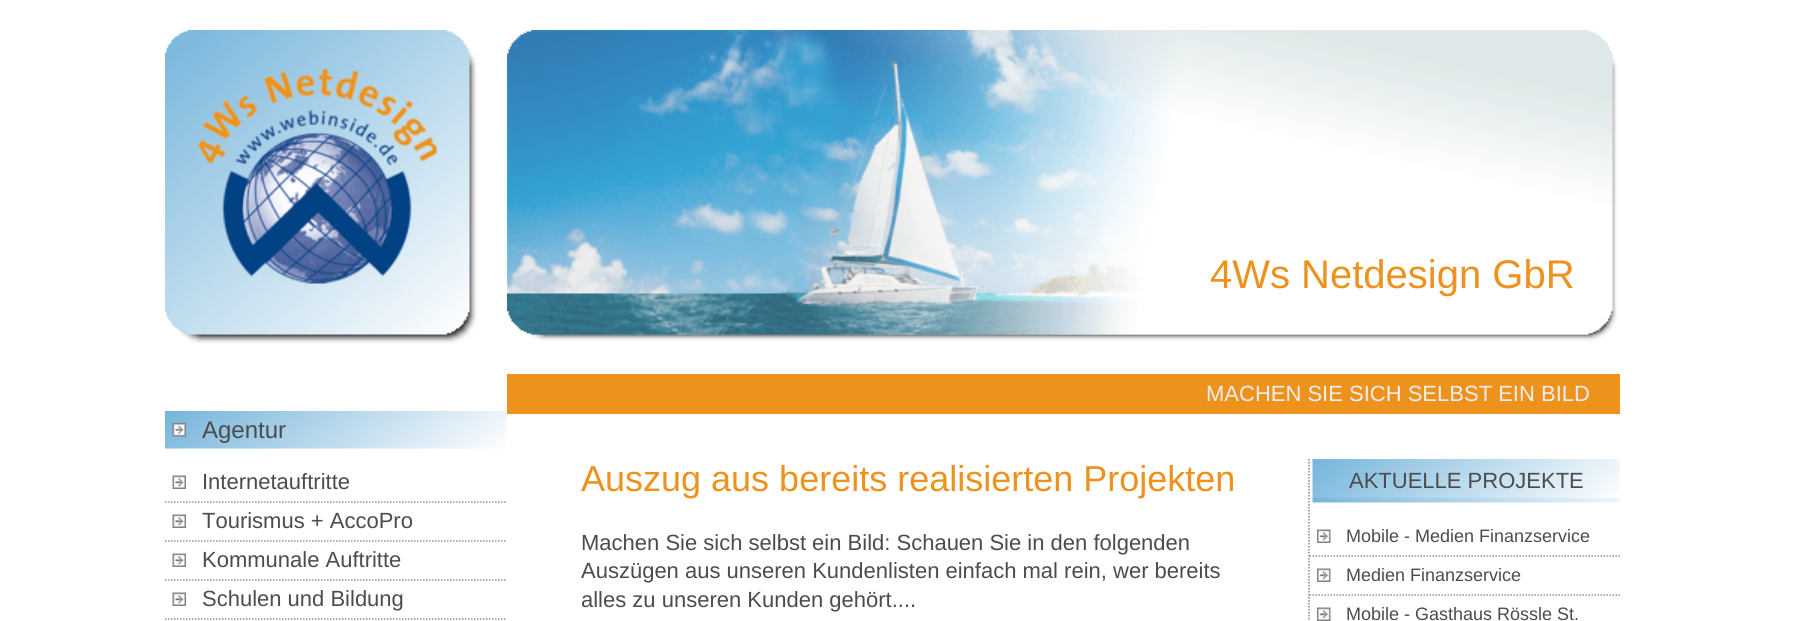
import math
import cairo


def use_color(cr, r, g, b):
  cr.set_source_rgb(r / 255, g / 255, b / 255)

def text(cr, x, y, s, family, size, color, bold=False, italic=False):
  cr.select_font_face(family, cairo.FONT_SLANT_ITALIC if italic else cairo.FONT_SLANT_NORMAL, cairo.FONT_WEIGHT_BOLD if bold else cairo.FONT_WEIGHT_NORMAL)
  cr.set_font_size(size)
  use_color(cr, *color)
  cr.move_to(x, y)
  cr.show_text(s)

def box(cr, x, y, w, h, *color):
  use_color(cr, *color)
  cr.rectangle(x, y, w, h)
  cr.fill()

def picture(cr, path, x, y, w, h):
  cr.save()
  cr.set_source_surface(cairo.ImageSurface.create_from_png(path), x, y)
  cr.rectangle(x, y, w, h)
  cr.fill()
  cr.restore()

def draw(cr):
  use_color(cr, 255, 255, 255)
  cr.paint()
  picture(cr, "img_01.png", 165, 30, 312, 314)
  picture(cr, "img_02.png", 507, 30, 1110, 311)
  box(cr, 165, 448, 342, 1, 249, 252, 253)
  picture(cr, "img_03.png", 165, 411, 342, 38)
  picture(cr, "img_04.png", 172, 423, 14, 14)
  picture(cr, "img_05.png", 172, 475, 14, 14)
  cr.new_path()
  cr.move_to(165, 502)
  cr.line_to(507, 502)
  use_color(cr, 147, 147, 147)
  cr.set_line_width(1.5)
  cr.set_dash([1.5, 1.5])
  cr.stroke()
  picture(cr, "img_05.png", 172, 514, 14, 14)
  cr.new_path()
  cr.move_to(165, 541)
  cr.line_to(507, 541)
  cr.stroke()
  picture(cr, "img_05.png", 172, 553, 14, 14)
  cr.new_path()
  cr.move_to(165, 580)
  cr.line_to(507, 580)
  cr.stroke()
  picture(cr, "img_05.png", 172, 592, 14, 14)
  cr.new_path()
  cr.move_to(165, 619)
  cr.line_to(507, 619)
  cr.stroke()
  box(cr, 507, 374, 1113, 40, 236, 146, 29)
  cr.new_path()
  cr.move_to(1309, 459)
  cr.line_to(1309, 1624.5)
  use_color(cr, 134, 134, 134)
  cr.stroke()
  picture(cr, "img_06.png", 1312, 459, 308, 44)
  picture(cr, "img_07.png", 1317, 529, 14, 14)
  cr.new_path()
  cr.move_to(1309.5, 556)
  cr.line_to(1620, 556)
  use_color(cr, 147, 147, 147)
  cr.stroke()
  picture(cr, "img_07.png", 1317, 568, 14, 14)
  cr.new_path()
  cr.move_to(1309.5, 595)
  cr.line_to(1620, 595)
  cr.stroke()
  picture(cr, "img_07.png", 1317, 607, 14, 14)
  text(cr, 1210, 288, "4Ws Netdesign GbR", "Liberation Sans", 40, (236, 146, 29))
  text(cr, 202, 438, "Agentur", "Liberation Sans", 24, (76, 76, 76))
  text(cr, 202, 489, "Internetauftritte", "Liberation Sans", 22, (76, 76, 76))
  text(cr, 202, 528, "Tourismus + AccoPro", "Liberation Sans", 22, (76, 76, 76))
  text(cr, 202, 567, "Kommunale Auftritte", "Liberation Sans", 22, (76, 76, 76))
  text(cr, 202, 606, "Schulen und Bildung", "Liberation Sans", 22, (76, 76, 76))
  text(cr, 1206, 401, "MACHEN SIE SICH SELBST EIN BILD", "Liberation Sans", 22, (238, 238, 238))
  text(cr, 581, 491, "Auszug aus bereits realisierten Projekten", "Liberation Sans", 36, (236, 146, 29))
  text(cr, 581, 550, "Machen Sie sich selbst ein Bild: Schauen Sie in den folgenden", "Liberation Sans", 22, (76, 76, 76))
  text(cr, 581, 578, "Auszügen aus unseren Kundenlisten einfach mal rein, wer bereits", "Liberation Sans", 22, (76, 76, 76))
  text(cr, 581, 607, "alles zu unseren Kunden gehört....", "Liberation Sans", 22, (76, 76, 76))
  text(cr, 1349, 488, "AKTUELLE PROJEKTE", "Liberation Sans", 22, (76, 76, 76))
  text(cr, 1346, 542, "Mobile - Medien Finanzservice", "Liberation Sans", 18, (76, 76, 76))
  text(cr, 1346, 581, "Medien Finanzservice", "Liberation Sans", 18, (76, 76, 76))
  text(cr, 1346, 620, "Mobile - Gasthaus Rössle St.", "Liberation Sans", 18, (76, 76, 76))


surface = cairo.ImageSurface(cairo.FORMAT_RGB24, 1813, 621)
cr = cairo.Context(surface)
options = cairo.FontOptions()
options.set_hint_metrics(cairo.HINT_METRICS_OFF)
options.set_hint_style(cairo.HINT_STYLE_NONE)
cr.set_font_options(options)
cr.set_miter_limit(4)
draw(cr)
surface.write_to_png("out.png")
